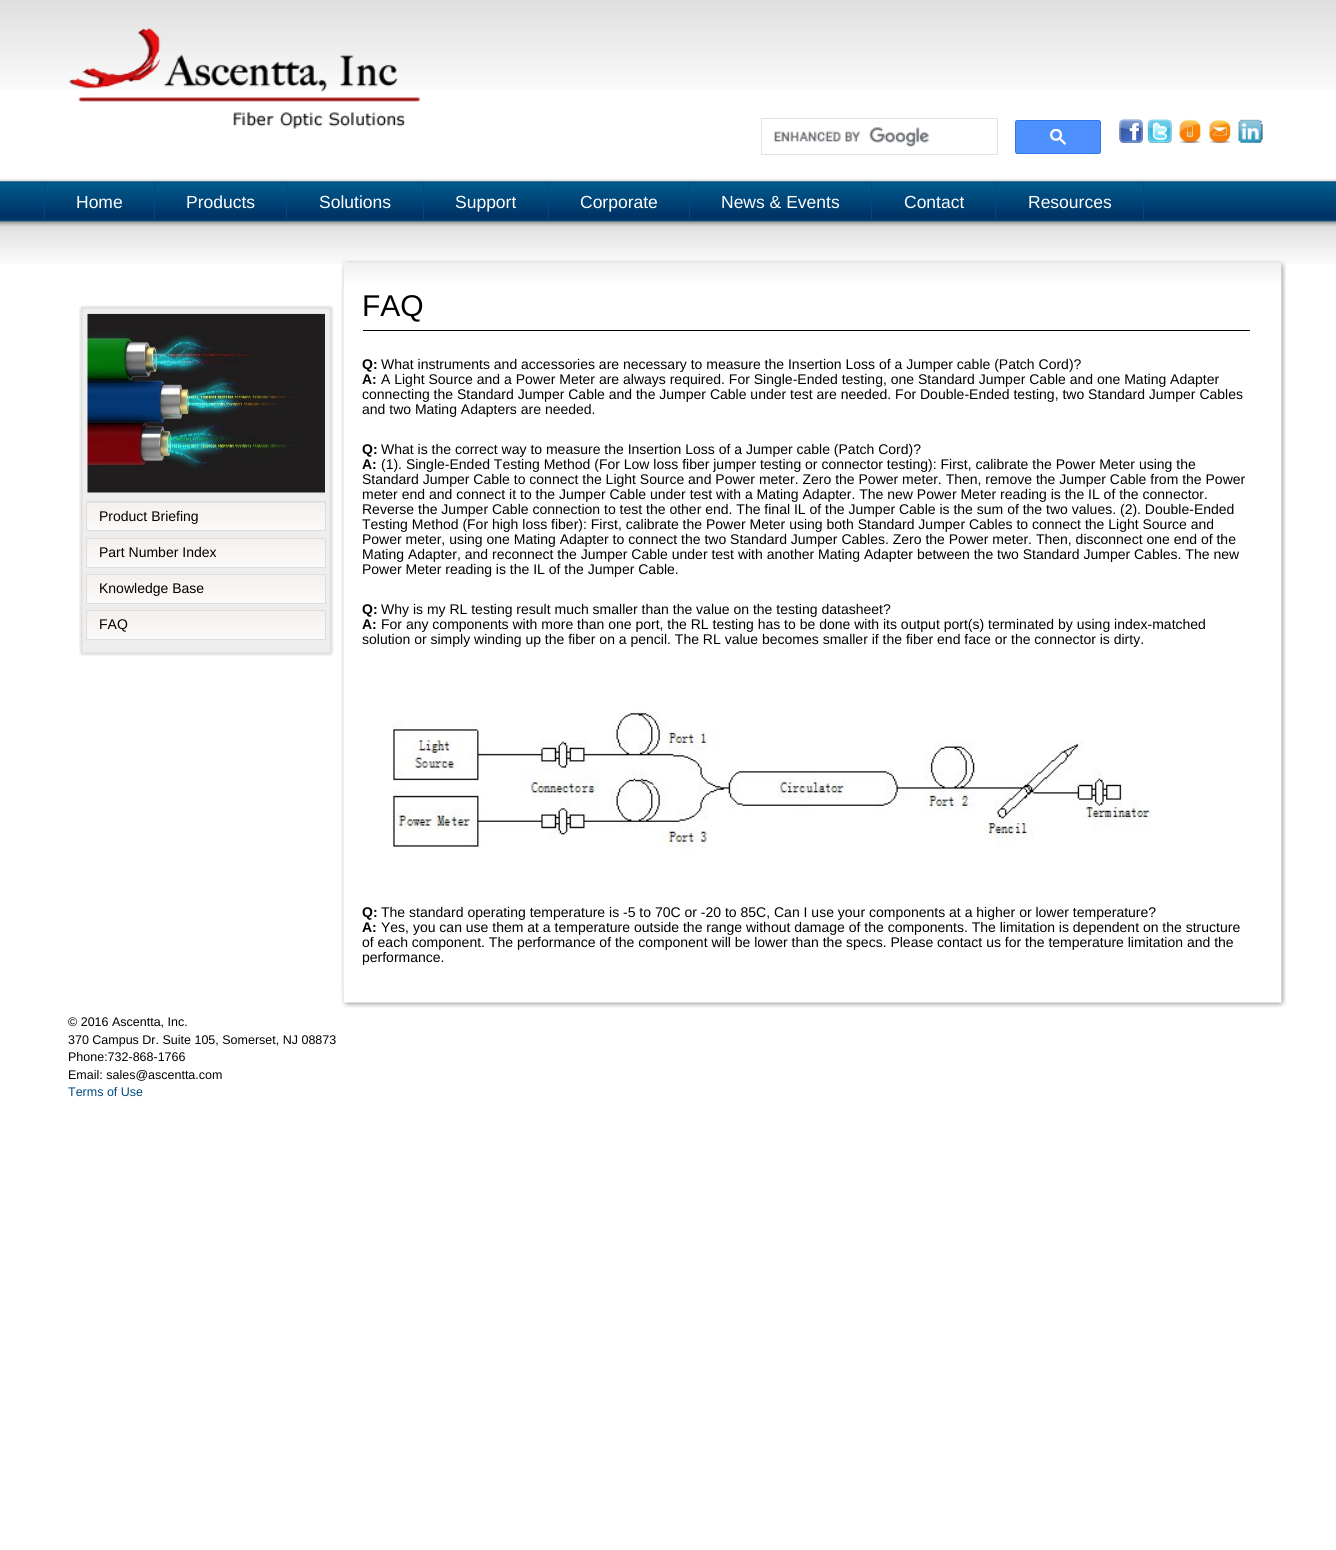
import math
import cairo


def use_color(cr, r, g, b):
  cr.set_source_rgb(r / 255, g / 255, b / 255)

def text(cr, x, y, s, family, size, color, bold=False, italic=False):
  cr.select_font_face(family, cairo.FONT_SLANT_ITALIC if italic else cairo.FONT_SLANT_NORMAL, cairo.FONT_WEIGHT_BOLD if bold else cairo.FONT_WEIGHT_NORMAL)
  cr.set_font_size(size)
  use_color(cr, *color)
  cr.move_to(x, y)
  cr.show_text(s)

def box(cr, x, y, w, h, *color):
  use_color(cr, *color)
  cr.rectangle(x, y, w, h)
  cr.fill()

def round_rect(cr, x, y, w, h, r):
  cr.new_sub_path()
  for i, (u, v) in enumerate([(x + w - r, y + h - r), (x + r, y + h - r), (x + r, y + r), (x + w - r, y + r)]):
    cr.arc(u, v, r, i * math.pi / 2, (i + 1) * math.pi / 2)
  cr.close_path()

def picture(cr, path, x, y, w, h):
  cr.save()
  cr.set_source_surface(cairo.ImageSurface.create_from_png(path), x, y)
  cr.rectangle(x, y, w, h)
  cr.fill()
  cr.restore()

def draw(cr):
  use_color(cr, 255, 255, 255)
  cr.paint()
  picture(cr, "img_01.png", 0, 0, 1336, 89)
  picture(cr, "img_02.png", 68, 12, 353, 117)
  cr.rectangle(761.5, 118.5, 236, 36)
  use_color(cr, 223, 225, 229)
  cr.set_line_width(1)
  cr.stroke()
  picture(cr, "img_03.png", 773, 127, 156, 20)
  use_color(cr, 77, 144, 254)
  round_rect(cr, 1015.5, 120.5, 85, 33, 2)
  cr.fill_preserve()
  use_color(cr, 48, 121, 237)
  cr.stroke()
  picture(cr, "img_04.png", 1050, 129, 16, 16)
  picture(cr, "img_05.png", 1119, 119, 24, 24)
  picture(cr, "img_06.png", 1147, 119, 25, 24)
  picture(cr, "img_07.png", 1177, 119, 26, 25)
  picture(cr, "img_08.png", 1207, 119, 26, 25)
  picture(cr, "img_09.png", 1238, 119, 25, 24)
  picture(cr, "img_10.png", 0, 179, 1336, 85)
  box(cr, 44, 183, 1, 37, 0, 73, 124)
  box(cr, 154, 183, 1, 37, 0, 73, 124)
  box(cr, 286, 183, 1, 37, 0, 73, 124)
  box(cr, 423, 183, 1, 37, 0, 73, 124)
  box(cr, 548, 183, 1, 37, 0, 73, 124)
  box(cr, 689, 183, 1, 37, 0, 73, 124)
  box(cr, 871, 183, 1, 37, 0, 73, 124)
  box(cr, 1143, 183, 1, 37, 0, 73, 124)
  box(cr, 995, 183, 1, 37, 0, 73, 124)
  picture(cr, "img_11.png", 341, 260, 945, 29)
  picture(cr, "img_12.png", 341, 288, 945, 702)
  picture(cr, "img_13.png", 79, 305, 255, 9)
  picture(cr, "img_14.png", 79, 314, 255, 332)
  picture(cr, "img_15.png", 87, 313, 238, 180)
  box(cr, 87, 502, 238, 1, 216, 216, 216)
  picture(cr, "img_16.png", 87, 502, 238, 28)
  cr.rectangle(86.5, 501.5, 239, 29)
  use_color(cr, 221, 221, 221)
  cr.stroke()
  picture(cr, "img_17.png", 87, 539, 238, 28)
  cr.rectangle(86.5, 538.5, 239, 29)
  cr.stroke()
  picture(cr, "img_18.png", 87, 575, 238, 28)
  cr.rectangle(86.5, 574.5, 239, 29)
  cr.stroke()
  picture(cr, "img_19.png", 87, 611, 238, 28)
  cr.rectangle(86.5, 610.5, 239, 29)
  cr.stroke()
  picture(cr, "img_20.png", 79, 646, 255, 10)
  box(cr, 363, 330, 887, 1, 0, 0, 0)
  picture(cr, "img_21.png", 392, 711, 760, 138)
  picture(cr, "img_22.png", 341, 990, 945, 18)
  text(cr, 76, 208, "Home", "Liberation Sans", 17.5, (255, 255, 255))
  text(cr, 186, 208, "Products", "Liberation Sans", 17.5, (255, 255, 255))
  text(cr, 319, 208, "Solutions", "Liberation Sans", 17.5, (255, 255, 255))
  text(cr, 455, 208, "Support", "Liberation Sans", 17.5, (255, 255, 255))
  text(cr, 580, 208, "Corporate", "Liberation Sans", 17.5, (255, 255, 255))
  text(cr, 721, 208, "News & Events", "Liberation Sans", 17.5, (255, 255, 255))
  text(cr, 904, 208, "Contact", "Liberation Sans", 17.5, (255, 255, 255))
  text(cr, 1028, 208, "Resources", "Liberation Sans", 17.5, (255, 255, 255))
  text(cr, 99, 521, "Product Briefing", "Liberation Sans", 14, (0, 0, 0))
  text(cr, 99, 557, "Part Number Index", "Liberation Sans", 14, (0, 0, 0))
  text(cr, 99, 593, "Knowledge Base", "Liberation Sans", 14, (0, 0, 0))
  text(cr, 99, 629, "FAQ", "Liberation Sans", 14, (0, 0, 0))
  text(cr, 362, 316, "FAQ", "Liberation Sans", 30, (0, 0, 0))
  text(cr, 362, 369, "Q:", "Liberation Sans", 14, (0, 0, 0), bold=True)
  text(cr, 381, 369, "What instruments and accessories are necessary to measure the Insertion Loss of a Jumper cable (Patch Cord)?", "Liberation Sans", 14, (0, 0, 0))
  text(cr, 362, 384, "A:", "Liberation Sans", 14, (0, 0, 0), bold=True)
  text(cr, 381, 384, "A Light Source and a Power Meter are always required. For Single-Ended testing, one Standard Jumper Cable and one Mating Adapter", "Liberation Sans", 14, (0, 0, 0))
  text(cr, 362, 399, "connecting the Standard Jumper Cable and the Jumper Cable under test are needed. For Double-Ended testing, two Standard Jumper Cables", "Liberation Sans", 14, (0, 0, 0))
  text(cr, 362, 414, "and two Mating Adapters are needed.", "Liberation Sans", 14, (0, 0, 0))
  text(cr, 362, 454, "Q:", "Liberation Sans", 14, (0, 0, 0), bold=True)
  text(cr, 381, 454, "What is the correct way to measure the Insertion Loss of a Jumper cable (Patch Cord)?", "Liberation Sans", 14, (0, 0, 0))
  text(cr, 362, 469, "A:", "Liberation Sans", 14, (0, 0, 0), bold=True)
  text(cr, 381, 469, "(1). Single-Ended Testing Method (For Low loss fiber jumper testing or connector testing): First, calibrate the Power Meter using the", "Liberation Sans", 14, (0, 0, 0))
  text(cr, 362, 484, "Standard Jumper Cable to connect the Light Source and Power meter. Zero the Power meter. Then, remove the Jumper Cable from the Power", "Liberation Sans", 14, (0, 0, 0))
  text(cr, 362, 499, "meter end and connect it to the Jumper Cable under test with a Mating Adapter. The new Power Meter reading is the IL of the connector.", "Liberation Sans", 14, (0, 0, 0))
  text(cr, 362, 514, "Reverse the Jumper Cable connection to test the other end. The final IL of the Jumper Cable is the sum of the two values. (2). Double-Ended", "Liberation Sans", 14, (0, 0, 0))
  text(cr, 362, 529, "Testing Method (For high loss fiber): First, calibrate the Power Meter using both Standard Jumper Cables to connect the Light Source and", "Liberation Sans", 14, (0, 0, 0))
  text(cr, 362, 544, "Power meter, using one Mating Adapter to connect the two Standard Jumper Cables. Zero the Power meter. Then, disconnect one end of the", "Liberation Sans", 14, (0, 0, 0))
  text(cr, 362, 559, "Mating Adapter, and reconnect the Jumper Cable under test with another Mating Adapter between the two Standard Jumper Cables. The new", "Liberation Sans", 14, (0, 0, 0))
  text(cr, 362, 574, "Power Meter reading is the IL of the Jumper Cable.", "Liberation Sans", 14, (0, 0, 0))
  text(cr, 362, 614, "Q:", "Liberation Sans", 14, (0, 0, 0), bold=True)
  text(cr, 381, 614, "Why is my RL testing result much smaller than the value on the testing datasheet?", "Liberation Sans", 14, (0, 0, 0))
  text(cr, 362, 629, "A:", "Liberation Sans", 14, (0, 0, 0), bold=True)
  text(cr, 381, 629, "For any components with more than one port, the RL testing has to be done with its output port(s) terminated by using index-matched", "Liberation Sans", 14, (0, 0, 0))
  text(cr, 362, 644, "solution or simply winding up the fiber on a pencil. The RL value becomes smaller if the fiber end face or the connector is dirty.", "Liberation Sans", 14, (0, 0, 0))
  text(cr, 362, 917, "Q:", "Liberation Sans", 14, (0, 0, 0), bold=True)
  text(cr, 381, 917, "The standard operating temperature is -5 to 70C or -20 to 85C, Can I use your components at a higher or lower temperature?", "Liberation Sans", 14, (0, 0, 0))
  text(cr, 362, 932, "A:", "Liberation Sans", 14, (0, 0, 0), bold=True)
  text(cr, 381, 932, "Yes, you can use them at a temperature outside the range without damage of the components. The limitation is dependent on the structure", "Liberation Sans", 14, (0, 0, 0))
  text(cr, 362, 947, "of each component. The performance of the component will be lower than the specs. Please contact us for the temperature limitation and the", "Liberation Sans", 14, (0, 0, 0))
  text(cr, 362, 962, "performance.", "Liberation Sans", 14, (0, 0, 0))
  text(cr, 68, 1026, "© 2016 Ascentta, Inc.", "Liberation Sans", 12.5, (0, 0, 0))
  text(cr, 68, 1044, "370 Campus Dr. Suite 105, Somerset, NJ 08873", "Liberation Sans", 12.5, (0, 0, 0))
  text(cr, 68, 1061, "Phone:732-868-1766", "Liberation Sans", 12.5, (0, 0, 0))
  text(cr, 68, 1079, "Email: sales@ascentta.com", "Liberation Sans", 12.5, (0, 0, 0))
  text(cr, 68, 1096, "Terms of Use", "Liberation Sans", 12.5, (0, 73, 124))


surface = cairo.ImageSurface(cairo.FORMAT_RGB24, 1336, 1550)
cr = cairo.Context(surface)
options = cairo.FontOptions()
options.set_hint_metrics(cairo.HINT_METRICS_OFF)
options.set_hint_style(cairo.HINT_STYLE_NONE)
cr.set_font_options(options)
cr.set_miter_limit(4)
draw(cr)
surface.write_to_png("out.png")
